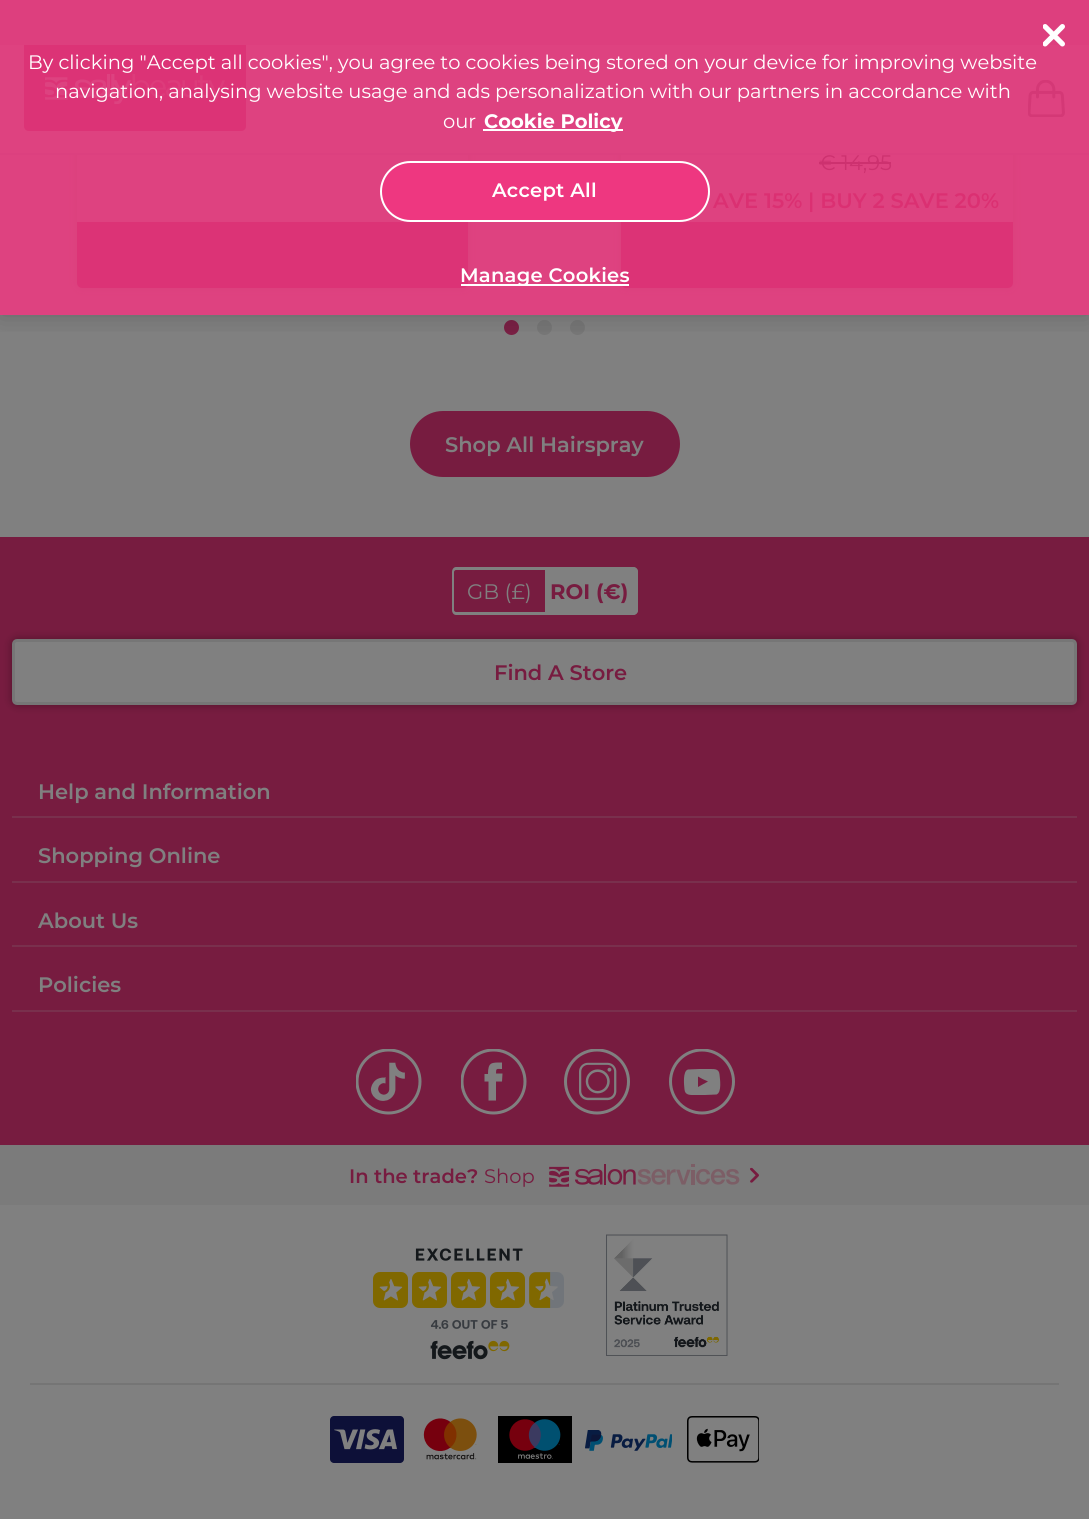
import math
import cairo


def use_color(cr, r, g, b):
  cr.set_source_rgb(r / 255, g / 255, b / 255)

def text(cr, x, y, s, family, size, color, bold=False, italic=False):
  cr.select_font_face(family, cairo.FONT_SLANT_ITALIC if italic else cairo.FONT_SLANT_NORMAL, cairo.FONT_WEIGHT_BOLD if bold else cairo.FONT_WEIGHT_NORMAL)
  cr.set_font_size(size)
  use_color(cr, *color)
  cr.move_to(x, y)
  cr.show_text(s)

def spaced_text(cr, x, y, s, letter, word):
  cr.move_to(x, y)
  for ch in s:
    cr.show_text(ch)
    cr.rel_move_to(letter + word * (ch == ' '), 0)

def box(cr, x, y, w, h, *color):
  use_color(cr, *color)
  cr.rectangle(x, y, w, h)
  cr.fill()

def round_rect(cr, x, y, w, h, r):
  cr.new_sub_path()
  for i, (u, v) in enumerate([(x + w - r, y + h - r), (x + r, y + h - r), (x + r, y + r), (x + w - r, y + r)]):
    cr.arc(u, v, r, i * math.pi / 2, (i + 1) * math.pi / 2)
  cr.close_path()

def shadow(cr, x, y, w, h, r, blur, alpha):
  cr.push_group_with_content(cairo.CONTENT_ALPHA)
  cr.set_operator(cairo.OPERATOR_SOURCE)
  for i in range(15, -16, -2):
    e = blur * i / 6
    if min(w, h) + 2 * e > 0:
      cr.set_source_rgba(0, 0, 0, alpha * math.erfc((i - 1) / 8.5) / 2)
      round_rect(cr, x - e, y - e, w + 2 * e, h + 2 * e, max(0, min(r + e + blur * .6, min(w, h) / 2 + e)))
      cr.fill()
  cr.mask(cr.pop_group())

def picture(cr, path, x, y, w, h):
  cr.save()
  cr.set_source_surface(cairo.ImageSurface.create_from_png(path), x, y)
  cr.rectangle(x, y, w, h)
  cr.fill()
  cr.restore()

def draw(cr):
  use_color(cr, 128, 128, 128)
  cr.paint()
  box(cr, 0, 155, 1089, 160, 222, 66, 128)
  use_color(cr, 202, 47, 109)
  shadow(cr, 77, -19, 391, 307, 5, 4.5, 0.16)
  use_color(cr, 222, 66, 128)
  round_rect(cr, 77, -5, 391, 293, 5)
  cr.fill()
  use_color(cr, 202, 47, 109)
  shadow(cr, 621, -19, 392, 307, 5, 4.5, 0.16)
  use_color(cr, 222, 66, 128)
  round_rect(cr, 621, -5, 392, 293, 5)
  cr.fill()
  box(cr, 0, 0, 1089, 45, 221, 63, 126)
  box(cr, 0, 153, 1089, 2, 220, 64, 127)
  box(cr, 0, 45, 1089, 108, 222, 66, 128)
  use_color(cr, 220, 51, 118)
  cr.new_path()
  cr.move_to(24, 45)
  cr.line_to(246, 45)
  cr.line_to(246, 126)
  cr.curve_to(246, 129, 244, 131, 241, 131)
  cr.line_to(29, 131)
  cr.curve_to(26, 131, 24, 129, 24, 126)
  cr.close_path()
  cr.fill()
  picture(cr, "img_02.png", 45, 74, 180, 30)
  picture(cr, "img_03.png", 1028, 80, 37, 37)
  cr.new_path()
  cr.move_to(78.5, 223.5)
  cr.line_to(466.5, 223.5)
  cr.line_to(466.5, 283)
  cr.curve_to(466.5, 285, 465, 286.5, 463, 286.5)
  cr.line_to(82, 286.5)
  cr.curve_to(80, 286.5, 78.5, 285, 78.5, 283)
  cr.close_path()
  cr.fill_preserve()
  cr.set_line_width(3)
  cr.stroke()
  box(cr, 819, 162, 72, 2, 205, 49, 111)
  use_color(cr, 220, 51, 118)
  cr.new_path()
  cr.move_to(622.5, 223.5)
  cr.line_to(1011.5, 223.5)
  cr.line_to(1011.5, 283)
  cr.curve_to(1011.5, 285, 1010, 286.5, 1008, 286.5)
  cr.line_to(626, 286.5)
  cr.curve_to(624, 286.5, 622.5, 285, 622.5, 283)
  cr.close_path()
  cr.fill_preserve()
  cr.stroke()
  use_color(cr, 121, 32, 68)
  cr.arc(511.5, 327.5, 7.5, 0, 2 * math.pi)
  cr.fill()
  use_color(cr, 118, 118, 118)
  cr.arc(544.5, 327.5, 7.5, 0, 2 * math.pi)
  cr.fill()
  cr.arc(577.5, 327.5, 7.5, 0, 2 * math.pi)
  cr.fill()
  cr.save()
  cr.rectangle(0, 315, 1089, 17)
  cr.clip()
  use_color(cr, 0, 0, 0)
  shadow(cr, 0, 0, 1089, 315, 0, 13.5, 0.2)
  cr.restore()
  picture(cr, "img_01.png", 1043, 24, 22, 23)
  box(cr, 483, 129, 140, 2, 255, 255, 255)
  use_color(cr, 238, 55, 128)
  round_rect(cr, 381, 162, 328, 59, 29.5)
  cr.fill_preserve()
  use_color(cr, 255, 255, 255)
  cr.set_line_width(2)
  cr.stroke()
  box(cr, 461, 284, 168, 2, 255, 255, 255)
  use_color(cr, 119, 28, 64)
  round_rect(cr, 411.5, 412.5, 267, 63, 31.5)
  cr.fill_preserve()
  cr.set_line_width(3)
  cr.stroke()
  box(cr, 0, 537, 1089, 608, 119, 28, 64)
  use_color(cr, 128, 128, 128)
  cr.set_fill_rule(cairo.FILL_RULE_EVEN_ODD)
  cr.new_path()
  cr.move_to(456, 567)
  cr.line_to(544, 567)
  cr.line_to(544, 615)
  cr.line_to(456, 615)
  cr.curve_to(454, 615, 452, 613, 452, 610)
  cr.line_to(452, 572)
  cr.curve_to(452, 569, 454, 567, 456, 567)
  cr.close_path()
  cr.move_to(456, 570)
  cr.line_to(544, 570)
  cr.line_to(544, 612)
  cr.line_to(456, 612)
  cr.curve_to(455, 612, 454, 611, 454, 610)
  cr.line_to(454, 572)
  cr.curve_to(454, 571, 455, 570, 456, 570)
  cr.close_path()
  cr.fill()
  cr.new_path()
  cr.move_to(545, 567)
  cr.line_to(633, 567)
  cr.curve_to(636, 567, 638, 569, 638, 572)
  cr.line_to(638, 610)
  cr.curve_to(638, 613, 636, 615, 633, 615)
  cr.line_to(545, 615)
  cr.close_path()
  cr.fill()
  cr.new_path()
  cr.move_to(544, 567)
  cr.line_to(633, 567)
  cr.curve_to(635, 567, 638, 569, 638, 572)
  cr.line_to(638, 610)
  cr.curve_to(638, 613, 635, 615, 633, 615)
  cr.line_to(544, 615)
  cr.close_path()
  cr.move_to(544, 570)
  cr.line_to(633, 570)
  cr.curve_to(634, 570, 634, 571, 634, 572)
  cr.line_to(634, 610)
  cr.curve_to(634, 611, 634, 612, 633, 612)
  cr.line_to(544, 612)
  cr.close_path()
  cr.fill()
  use_color(cr, 0, 0, 0)
  shadow(cr, 12, 639, 1065, 66, 5, 4.5, 0.33)
  use_color(cr, 128, 128, 128)
  round_rect(cr, 13.5, 640.5, 1062, 63, 3.5)
  cr.fill_preserve()
  use_color(cr, 118, 118, 118)
  cr.stroke()
  box(cr, 12, 816, 1065, 2, 121, 48, 77)
  box(cr, 12, 881, 1065, 2, 121, 48, 77)
  box(cr, 12, 945, 1065, 2, 121, 48, 77)
  box(cr, 12, 1010, 1065, 2, 121, 48, 77)
  picture(cr, "img_04.png", 356, 1049, 66, 66)
  use_color(cr, 128, 128, 128)
  cr.new_path()
  cr.move_to(496, 1073.5)
  cr.curve_to(496, 1068, 496.5, 1069, 502, 1069)
  cr.line_to(502, 1062.5)
  cr.curve_to(491.5, 1062.5, 488, 1062, 488, 1074)
  cr.line_to(484.5, 1074)
  cr.line_to(484.5, 1081.5)
  cr.line_to(488.5, 1081.5)
  cr.line_to(488.5, 1100.5)
  cr.line_to(496, 1100.5)
  cr.line_to(496, 1081.5)
  cr.line_to(502, 1081.5)
  cr.line_to(502.5, 1073.5)
  cr.close_path()
  cr.fill()
  cr.save()
  cr.set_fill_rule(cairo.FILL_RULE_WINDING)
  cr.rectangle(461, 1049, 66, 66)
  cr.clip()
  cr.arc(493.5, 1081.5, 31.5, 0, 2 * math.pi)
  cr.stroke()
  cr.restore()
  picture(cr, "img_05.png", 564, 1049, 66, 66)
  cr.save()
  cr.set_fill_rule(cairo.FILL_RULE_WINDING)
  cr.rectangle(669, 1049, 66, 66)
  cr.clip()
  cr.arc(702, 1081.5, 31.5, 0, 2 * math.pi)
  cr.stroke()
  cr.restore()
  cr.new_path()
  cr.move_to(719.5, 1074.5)
  cr.curve_to(719, 1069, 715, 1069, 710.5, 1069)
  cr.line_to(699.5, 1069)
  cr.line_to(688, 1069.5)
  cr.curve_to(682.5, 1071, 684, 1085, 684.5, 1089.5)
  cr.curve_to(685, 1095.5, 690.5, 1095, 695, 1095)
  cr.line_to(705, 1095)
  cr.line_to(716.5, 1094.5)
  cr.curve_to(722, 1092.5, 720, 1079, 719.5, 1074.5)
  cr.close_path()
  cr.move_to(708, 1081.5)
  cr.line_to(698, 1087)
  cr.line_to(698, 1076.5)
  cr.line_to(702.5, 1079)
  cr.close_path()
  cr.fill()
  box(cr, 0, 1145, 1089, 60, 123, 123, 123)
  picture(cr, "img_06.png", 549, 1164, 191, 23)
  picture(cr, "img_07.png", 750, 1167, 9, 16)
  picture(cr, "img_08.png", 373, 1248, 191, 112)
  picture(cr, "img_09.png", 606, 1234, 122, 122)
  box(cr, 30, 1383, 1029, 2, 117, 117, 117)
  picture(cr, "img_10.png", 330, 1416, 74, 47)
  picture(cr, "img_11.png", 423, 1418, 54, 42)
  picture(cr, "img_12.png", 498, 1416, 74, 47)
  picture(cr, "img_13.png", 585, 1430, 87, 21)
  picture(cr, "img_14.png", 687, 1416, 72, 47)
  text(cr, 28, 69, "By clicking \"Accept all cookies\", you agree to cookies being stored on your device for improving website", "Montserrat", 19.5, (255, 255, 255))
  text(cr, 55, 98, "navigation, analysing website usage and ads personalization with our partners in accordance with", "Montserrat", 19.5, (255, 255, 255))
  text(cr, 443, 128, "our", "Montserrat", 19.5, (255, 255, 255))
  text(cr, 484, 128, "Cookie Policy", "Montserrat", 19.5, (255, 255, 255), bold=True)
  cr.select_font_face("Montserrat SemiBold")
  spaced_text(cr, 492, 197, "Accept All", 0.25, 0)
  spaced_text(cr, 460, 282, "Manage Cookies", 0.25, 0)
  text(cr, 819, 170, "€ 14,95", "Montserrat", 21, (205, 49, 111))
  text(cr, 713, 208, "AVE 15% | BUY 2 SAVE 20%", "Montserrat SemiBold", 21, (219, 48, 114))
  text(cr, 445, 452, "Shop All Hairspray", "Montserrat SemiBold", 21, (128, 128, 128))
  text(cr, 467, 599, "GB (£)", "Montserrat", 21, (128, 128, 128))
  text(cr, 550, 599, "ROI (€)", "Montserrat", 21, (119, 28, 64), bold=True)
  text(cr, 494, 680, "Find A Store", "Montserrat SemiBold", 21, (119, 28, 64))
  text(cr, 38, 799, "Help and Information", "Montserrat SemiBold", 21, (128, 128, 128))
  text(cr, 38, 863, "Shopping Online", "Montserrat SemiBold", 21, (128, 128, 128))
  text(cr, 38, 928, "About Us", "Montserrat SemiBold", 21, (128, 128, 128))
  text(cr, 38, 992, "Policies", "Montserrat SemiBold", 21, (128, 128, 128))
  text(cr, 349, 1183, "In the trade?", "Montserrat SemiBold", 19.5, (119, 28, 64))
  text(cr, 484, 1183, "Shop", "Montserrat", 19.5, (119, 28, 64))


surface = cairo.ImageSurface(cairo.FORMAT_RGB24, 1089, 1519)
cr = cairo.Context(surface)
options = cairo.FontOptions()
options.set_hint_metrics(cairo.HINT_METRICS_OFF)
options.set_hint_style(cairo.HINT_STYLE_NONE)
cr.set_font_options(options)
cr.set_miter_limit(4)
draw(cr)
surface.write_to_png("out.png")
